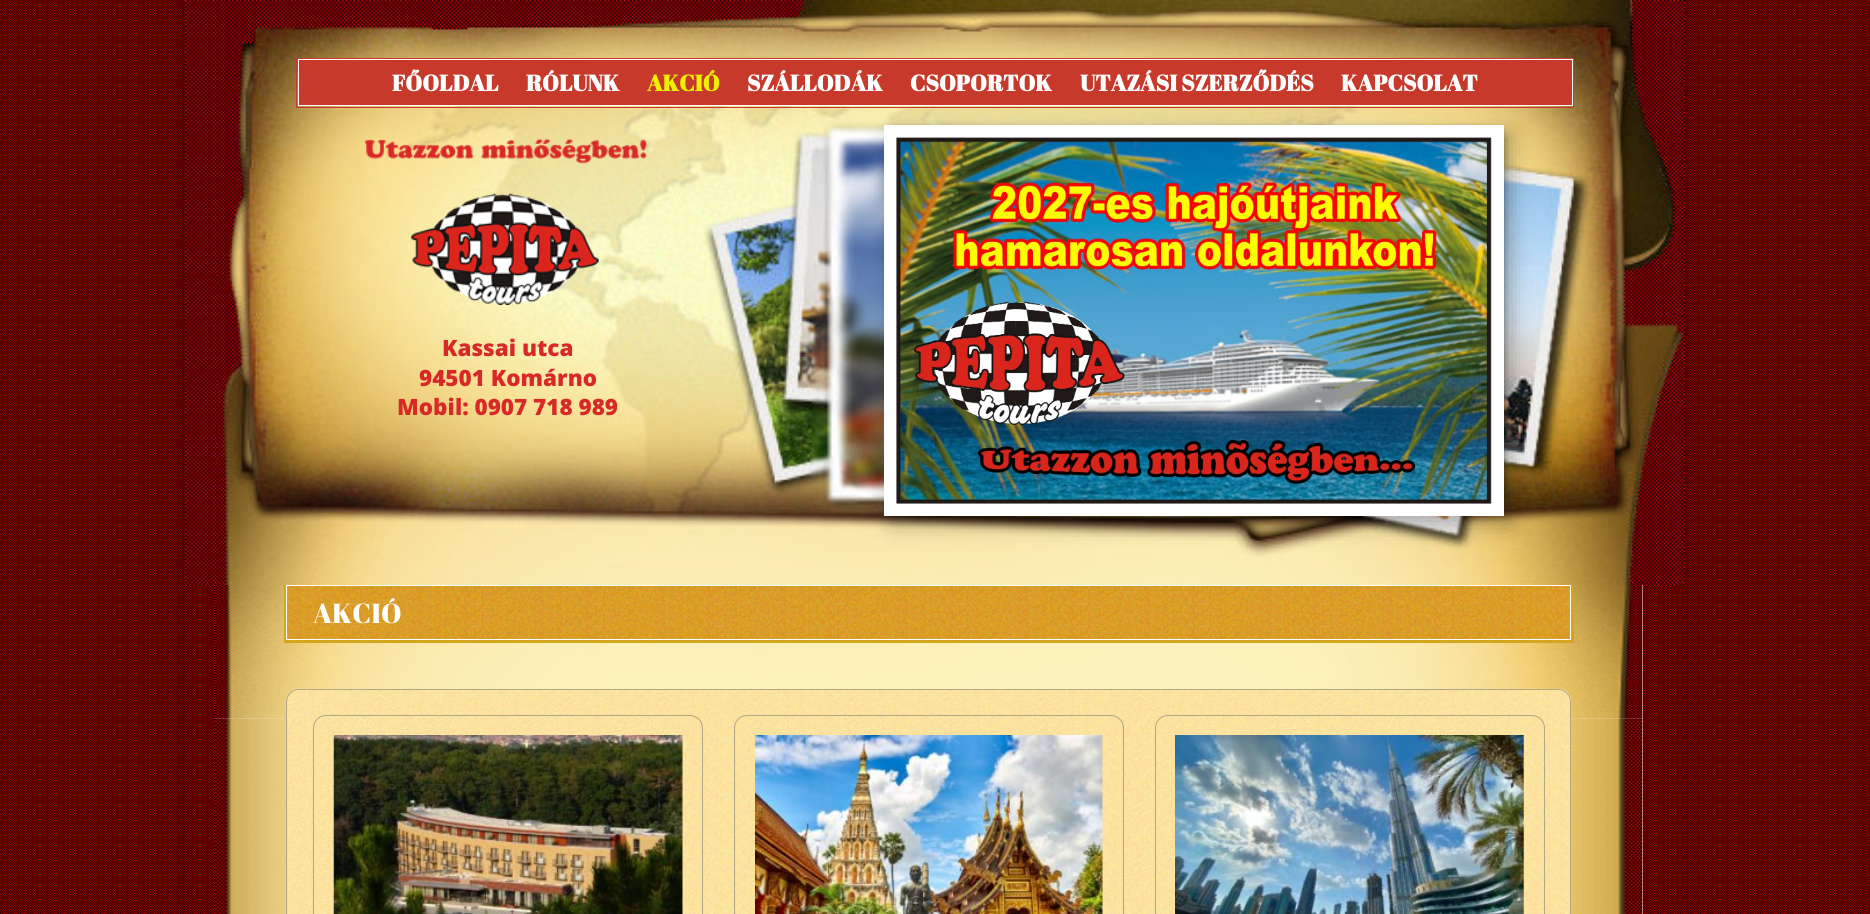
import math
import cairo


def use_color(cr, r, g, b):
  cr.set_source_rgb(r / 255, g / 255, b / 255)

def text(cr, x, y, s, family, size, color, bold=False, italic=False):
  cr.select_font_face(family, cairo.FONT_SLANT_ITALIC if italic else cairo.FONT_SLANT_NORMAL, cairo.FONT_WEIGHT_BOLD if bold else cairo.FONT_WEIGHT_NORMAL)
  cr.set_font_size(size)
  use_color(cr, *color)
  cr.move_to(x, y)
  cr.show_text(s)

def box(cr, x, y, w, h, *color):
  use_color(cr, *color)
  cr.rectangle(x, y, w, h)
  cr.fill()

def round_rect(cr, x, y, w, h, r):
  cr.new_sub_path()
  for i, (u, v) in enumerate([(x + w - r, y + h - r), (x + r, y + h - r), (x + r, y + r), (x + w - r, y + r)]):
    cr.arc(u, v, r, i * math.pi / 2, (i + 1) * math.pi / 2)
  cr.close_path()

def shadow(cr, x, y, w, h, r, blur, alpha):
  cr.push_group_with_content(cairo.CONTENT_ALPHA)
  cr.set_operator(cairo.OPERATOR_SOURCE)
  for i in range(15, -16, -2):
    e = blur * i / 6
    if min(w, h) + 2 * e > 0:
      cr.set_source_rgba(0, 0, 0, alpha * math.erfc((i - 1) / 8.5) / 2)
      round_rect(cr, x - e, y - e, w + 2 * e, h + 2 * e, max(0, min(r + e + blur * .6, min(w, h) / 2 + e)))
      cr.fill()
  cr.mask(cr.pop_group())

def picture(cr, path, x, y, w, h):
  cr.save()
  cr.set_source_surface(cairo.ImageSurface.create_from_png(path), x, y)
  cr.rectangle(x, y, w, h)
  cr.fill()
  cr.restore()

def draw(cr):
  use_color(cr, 255, 255, 255)
  cr.paint()
  picture(cr, "img_01.png", 0, 0, 1870, 914)
  cr.save()
  cr.set_fill_rule(cairo.FILL_RULE_EVEN_ODD)
  cr.new_path()
  cr.move_to(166, 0)
  cr.line_to(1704, 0)
  cr.line_to(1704, 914)
  cr.line_to(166, 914)
  cr.close_path()
  cr.move_to(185, 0)
  cr.line_to(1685, 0)
  cr.line_to(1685, 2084)
  cr.line_to(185, 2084)
  cr.close_path()
  cr.clip()
  use_color(cr, 0, 0, 0)
  shadow(cr, 185, 0, 1500, 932, 0, 6, 0.2)
  cr.restore()
  box(cr, 215, 585, 1428, 134, 255, 255, 255)
  picture(cr, "img_06.png", 215, 585, 1428, 134)
  cr.rectangle(285.5, 584.5, 1287, 57)
  use_color(cr, 212, 166, 31)
  cr.set_line_width(3)
  cr.stroke()
  picture(cr, "img_02.png", 185, 0, 1500, 585)
  use_color(cr, 0, 0, 0)
  shadow(cr, 891, 133, 620, 391, 0, 11, 0.3)
  cr.rectangle(296.5, 58.5, 1277, 49)
  use_color(cr, 198, 57, 43)
  cr.set_line_width(1)
  cr.stroke()
  cr.rectangle(298.5, 59.5, 1274, 46)
  cr.fill_preserve()
  use_color(cr, 255, 255, 255)
  cr.stroke()
  picture(cr, "img_03.png", 364, 138, 283, 26)
  picture(cr, "img_04.png", 411, 193, 188, 112)
  cr.rectangle(890.5, 131.5, 607, 378)
  cr.set_line_width(13)
  cr.stroke()
  picture(cr, "img_05.png", 896, 137, 596, 367)
  picture(cr, "img_07.png", 287, 585, 1285, 55)
  cr.rectangle(286.5, 585.5, 1284, 54)
  cr.set_line_width(1)
  cr.stroke()
  box(cr, 1642, 719, 1, 195, 255, 255, 255)
  picture(cr, "img_08.png", 215, 718, 1428, 196)
  picture(cr, "img_09.png", 286, 688, 1286, 226)
  round_rect(cr, 286.5, 689.5, 1284, 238, 12.5)
  use_color(cr, 177, 167, 132)
  cr.stroke()
  picture(cr, "img_10.png", 313, 715, 390, 199)
  round_rect(cr, 313.5, 715.5, 389, 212, 12.5)
  cr.stroke()
  picture(cr, "img_11.png", 333, 735, 350, 179)
  picture(cr, "img_12.png", 734, 715, 390, 199)
  round_rect(cr, 734.5, 715.5, 389, 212, 12.5)
  cr.stroke()
  picture(cr, "img_13.png", 755, 735, 348, 179)
  picture(cr, "img_14.png", 1155, 715, 390, 199)
  round_rect(cr, 1155.5, 715.5, 389, 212, 12.5)
  cr.stroke()
  picture(cr, "img_15.png", 1175, 735, 349, 179)
  text(cr, 392, 91, "FŐOLDAL", "Abril Fatface", 22.5, (255, 255, 255), bold=True)
  text(cr, 526, 91, "RÓLUNK", "Abril Fatface", 22.5, (255, 255, 255), bold=True)
  text(cr, 647, 91, "AKCIÓ", "Abril Fatface", 22.5, (237, 240, 0), bold=True)
  text(cr, 747, 91, "SZÁLLODÁK", "Abril Fatface", 22.5, (255, 255, 255), bold=True)
  text(cr, 910, 91, "CSOPORTOK", "Abril Fatface", 22.5, (255, 255, 255), bold=True)
  text(cr, 1080, 91, "UTAZÁSI SZERZŐDÉS", "Abril Fatface", 22.5, (255, 255, 255), bold=True)
  text(cr, 1341, 91, "KAPCSOLAT", "Abril Fatface", 22.5, (255, 255, 255), bold=True)
  text(cr, 442, 356, "Kassai utca", "Open Sans ExtraBold", 22.5, (216, 40, 39))
  text(cr, 419, 386, "94501 Komárno", "Open Sans ExtraBold", 22.5, (216, 40, 39))
  text(cr, 397, 415, "Mobil: 0907 718 989", "Open Sans ExtraBold", 22.5, (216, 40, 39))
  text(cr, 313, 623, "AKCIÓ", "Abril Fatface", 27.5, (255, 255, 255))


surface = cairo.ImageSurface(cairo.FORMAT_RGB24, 1870, 914)
cr = cairo.Context(surface)
options = cairo.FontOptions()
options.set_hint_metrics(cairo.HINT_METRICS_OFF)
options.set_hint_style(cairo.HINT_STYLE_NONE)
cr.set_font_options(options)
cr.set_miter_limit(4)
draw(cr)
surface.write_to_png("out.png")
